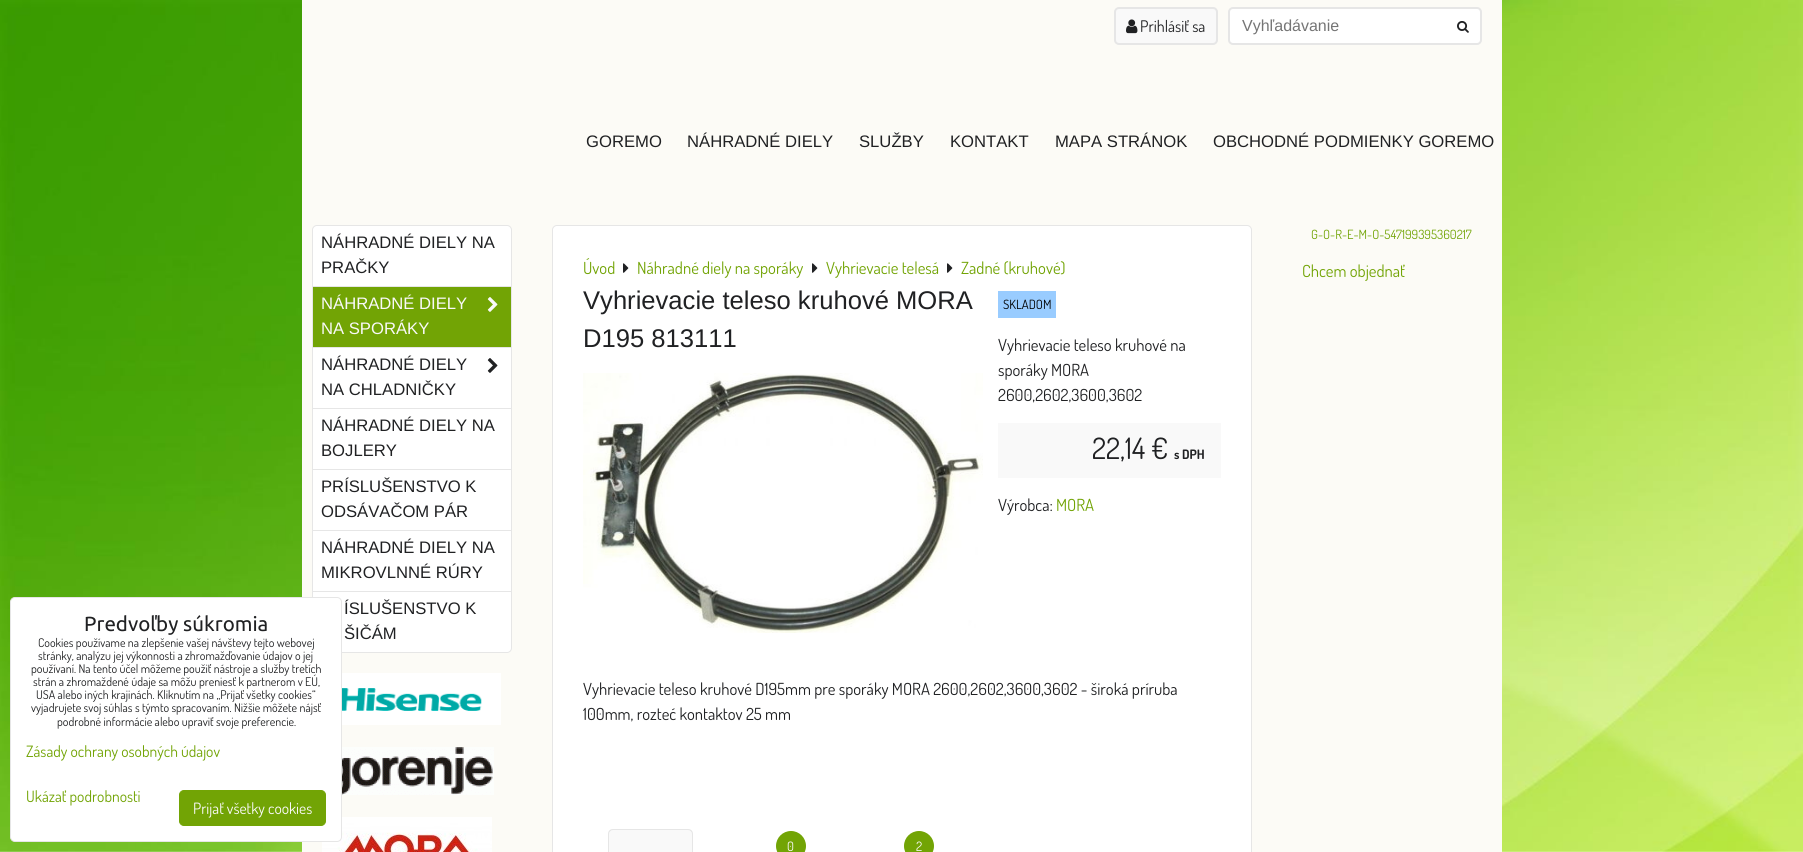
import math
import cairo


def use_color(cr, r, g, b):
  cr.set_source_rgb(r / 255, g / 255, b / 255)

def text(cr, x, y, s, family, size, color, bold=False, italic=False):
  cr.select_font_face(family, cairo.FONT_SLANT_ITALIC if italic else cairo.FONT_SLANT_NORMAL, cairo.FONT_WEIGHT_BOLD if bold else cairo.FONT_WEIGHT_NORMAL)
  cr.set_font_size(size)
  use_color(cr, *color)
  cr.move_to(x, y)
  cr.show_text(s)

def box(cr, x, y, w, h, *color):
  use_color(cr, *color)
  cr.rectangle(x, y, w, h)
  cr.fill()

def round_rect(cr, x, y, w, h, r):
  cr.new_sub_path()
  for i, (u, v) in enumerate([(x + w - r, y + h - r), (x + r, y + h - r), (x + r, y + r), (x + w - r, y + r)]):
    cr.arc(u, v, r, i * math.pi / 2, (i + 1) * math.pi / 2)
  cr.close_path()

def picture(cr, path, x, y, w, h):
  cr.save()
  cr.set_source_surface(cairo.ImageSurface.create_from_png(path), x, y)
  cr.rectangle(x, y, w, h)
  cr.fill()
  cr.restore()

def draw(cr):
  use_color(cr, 255, 255, 255)
  cr.paint()
  picture(cr, "img_01.png", 0, 0, 1803, 852)
  box(cr, 302, 0, 1200, 852, 252, 251, 246)
  use_color(cr, 255, 255, 255)
  round_rect(cr, 312.5, 225.5, 199, 427, 4.5)
  cr.fill_preserve()
  use_color(cr, 230, 230, 230)
  cr.set_line_width(1)
  cr.stroke()
  picture(cr, "img_08.png", 322, 817, 170, 35)
  use_color(cr, 255, 255, 255)
  round_rect(cr, 10.5, 597.5, 331, 244, 4.5)
  cr.fill_preserve()
  use_color(cr, 230, 230, 230)
  cr.stroke()
  use_color(cr, 114, 164, 5)
  round_rect(cr, 179.5, 790.5, 146, 35, 4.5)
  cr.fill_preserve()
  cr.stroke()
  use_color(cr, 249, 249, 249)
  round_rect(cr, 1115, 8, 102, 36, 4)
  cr.fill_preserve()
  use_color(cr, 230, 230, 230)
  cr.set_line_width(2)
  cr.stroke()
  picture(cr, "img_02.png", 1126, 19, 12, 15)
  use_color(cr, 255, 255, 255)
  round_rect(cr, 1229, 8, 252, 36, 4)
  cr.fill_preserve()
  use_color(cr, 230, 230, 230)
  cr.stroke()
  picture(cr, "img_03.png", 1457, 21, 12, 12)
  box(cr, 313, 286, 198, 1, 230, 230, 230)
  box(cr, 313, 287, 198, 60, 114, 164, 5)
  box(cr, 313, 347, 198, 1, 230, 230, 230)
  picture(cr, "img_04.png", 487, 297, 11, 15)
  box(cr, 313, 408, 198, 1, 230, 230, 230)
  picture(cr, "img_05.png", 487, 358, 11, 15)
  box(cr, 313, 469, 198, 1, 230, 230, 230)
  box(cr, 313, 530, 198, 1, 230, 230, 230)
  box(cr, 313, 591, 198, 1, 230, 230, 230)
  picture(cr, "img_06.png", 342, 673, 159, 52)
  picture(cr, "img_07.png", 342, 747, 152, 48)
  use_color(cr, 255, 255, 255)
  round_rect(cr, 552.5, 225.5, 699, 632, 4.5)
  cr.fill_preserve()
  use_color(cr, 230, 230, 230)
  cr.set_line_width(1)
  cr.stroke()
  picture(cr, "img_09.png", 623, 263, 6, 10)
  picture(cr, "img_09.png", 812, 263, 6, 10)
  picture(cr, "img_09.png", 947, 263, 6, 10)
  picture(cr, "img_10.png", 583, 373, 400, 260)
  box(cr, 998, 291, 58, 27, 153, 204, 255)
  box(cr, 998, 423, 223, 55, 249, 249, 249)
  cr.new_path()
  cr.move_to(613, 830)
  cr.line_to(688, 830)
  cr.curve_to(690, 830, 692, 832, 692, 834)
  cr.line_to(692, 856)
  cr.line_to(609, 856)
  cr.line_to(609, 834)
  cr.curve_to(609, 832, 611, 830, 613, 830)
  cr.close_path()
  cr.fill()
  use_color(cr, 230, 230, 230)
  cr.set_fill_rule(cairo.FILL_RULE_EVEN_ODD)
  cr.new_path()
  cr.move_to(613, 829)
  cr.line_to(688, 829)
  cr.curve_to(691, 829, 693, 831, 693, 834)
  cr.line_to(693, 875)
  cr.line_to(608, 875)
  cr.line_to(608, 834)
  cr.curve_to(608, 831, 610, 829, 613, 829)
  cr.close_path()
  cr.move_to(613, 830)
  cr.line_to(688, 830)
  cr.curve_to(690, 830, 692, 832, 692, 834)
  cr.line_to(692, 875)
  cr.line_to(609, 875)
  cr.line_to(609, 834)
  cr.curve_to(609, 832, 611, 830, 613, 830)
  cr.close_path()
  cr.fill()
  use_color(cr, 114, 164, 5)
  cr.arc(791, 846, 15, 0, 2 * math.pi)
  cr.fill()
  cr.arc(919, 846, 15, 0, 2 * math.pi)
  cr.fill()
  text(cr, 84, 631, "Predvoľby súkromia", "Ubuntu", 20.5, (32, 33, 35))
  text(cr, 38, 647, "Cookies používame na zlepšenie vašej návštevy tejto webovej", "Dosis", 12, (32, 33, 35))
  text(cr, 38, 660, "stránky, analýzu jej výkonnosti a zhromažďovanie údajov o jej", "Dosis", 12, (32, 33, 35))
  text(cr, 31, 673, "používaní. Na tento účel môžeme použiť nástroje a služby tretích", "Dosis", 12, (32, 33, 35))
  text(cr, 33, 686, "strán a zhromaždené údaje sa môžu preniesť k partnerom v EÚ,", "Dosis", 12, (32, 33, 35))
  text(cr, 36, 699, "USA alebo iných krajinách. Kliknutím na „Prijať všetky cookies“", "Dosis", 12, (32, 33, 35))
  text(cr, 31, 712, "vyjadrujete svoj súhlas s týmto spracovaním. Nižšie môžete nájsť", "Dosis", 12, (32, 33, 35))
  text(cr, 57, 726, "podrobné informácie alebo upraviť svoje preferencie.", "Dosis", 12, (32, 33, 35))
  text(cr, 26, 757, "Zásady ochrany osobných údajov", "Dosis", 15.6, (114, 164, 5))
  text(cr, 26, 802, "Ukázať podrobnosti", "Dosis", 15.6, (114, 164, 5))
  text(cr, 193, 814, "Prijať všetky cookies", "Dosis", 15.6, (249, 249, 249))
  text(cr, 1140, 32, "Prihlásiť sa", "Dosis", 16, (32, 33, 35))
  text(cr, 1242, 31, "Vyhľadávanie", "Liberation Sans", 16, (117, 117, 117))
  text(cr, 586, 147, "GOREMO", "Liberation Sans", 16.65, (32, 33, 35))
  text(cr, 687, 147, "NÁHRADNÉ DIELY", "Liberation Sans", 16.65, (32, 33, 35))
  text(cr, 859, 147, "SLUŽBY", "Liberation Sans", 16.65, (32, 33, 35))
  text(cr, 950, 147, "KONTAKT", "Liberation Sans", 16.65, (32, 33, 35))
  text(cr, 1055, 147, "MAPA STRÁNOK", "Liberation Sans", 16.65, (32, 33, 35))
  text(cr, 1213, 147, "OBCHODNÉ PODMIENKY GOREMO", "Liberation Sans", 16.65, (32, 33, 35))
  text(cr, 321, 248, "NÁHRADNÉ DIELY NA", "Liberation Sans", 16.65, (32, 33, 35))
  text(cr, 321, 273, "PRAČKY", "Liberation Sans", 16.65, (32, 33, 35))
  text(cr, 321, 309, "NÁHRADNÉ DIELY", "Liberation Sans", 16.65, (249, 249, 249))
  text(cr, 321, 334, "NA SPORÁKY", "Liberation Sans", 16.65, (249, 249, 249))
  text(cr, 321, 370, "NÁHRADNÉ DIELY", "Liberation Sans", 16.65, (32, 33, 35))
  text(cr, 321, 395, "NA CHLADNIČKY", "Liberation Sans", 16.65, (32, 33, 35))
  text(cr, 321, 431, "NÁHRADNÉ DIELY NA", "Liberation Sans", 16.65, (32, 33, 35))
  text(cr, 321, 456, "BOJLERY", "Liberation Sans", 16.65, (32, 33, 35))
  text(cr, 321, 492, "PRÍSLUŠENSTVO K", "Liberation Sans", 16.65, (32, 33, 35))
  text(cr, 321, 517, "ODSÁVAČOM PÁR", "Liberation Sans", 16.65, (32, 33, 35))
  text(cr, 321, 553, "NÁHRADNÉ DIELY NA", "Liberation Sans", 16.65, (32, 33, 35))
  text(cr, 321, 578, "MIKROVLNNÉ RÚRY", "Liberation Sans", 16.65, (32, 33, 35))
  text(cr, 344, 614, "ÍSLUŠENSTVO K", "Liberation Sans", 16.65, (32, 33, 35))
  text(cr, 344, 639, "ŠIČÁM", "Liberation Sans", 16.65, (32, 33, 35))
  text(cr, 583, 274, "Úvod", "Dosis", 16.65, (114, 164, 5))
  text(cr, 637, 274, "Náhradné diely na sporáky", "Dosis", 16.65, (114, 164, 5))
  text(cr, 826, 274, "Vyhrievacie telesá", "Dosis", 16.65, (114, 164, 5))
  text(cr, 961, 274, "Zadné (kruhové)", "Dosis", 16.65, (114, 164, 5))
  text(cr, 583, 309, "Vyhrievacie teleso kruhové MORA", "Liberation Sans", 25.6, (32, 33, 35))
  text(cr, 583, 347, "D195 813111", "Liberation Sans", 25.6, (32, 33, 35))
  text(cr, 1003, 309, "SKLADOM", "Dosis", 12.75, (0, 0, 0))
  text(cr, 998, 351, "Vyhrievacie teleso kruhové na", "Dosis", 16.65, (32, 33, 35))
  text(cr, 998, 376, "sporáky MORA", "Dosis", 16.65, (32, 33, 35))
  text(cr, 998, 401, "2600,2602,3600,3602", "Dosis", 16.65, (32, 33, 35))
  text(cr, 1092, 459, "22,14 €", "Dosis", 29.5, (32, 33, 35))
  text(cr, 1174, 459, "s DPH", "Dosis", 13, (32, 33, 35), bold=True)
  text(cr, 998, 511, "Výrobca:", "Dosis", 16.65, (32, 33, 35))
  text(cr, 1056, 511, "MORA", "Dosis", 16.65, (114, 164, 5))
  text(cr, 583, 695, "Vyhrievacie teleso kruhové D195mm pre sporáky MORA 2600,2602,3600,3602 - široká príruba", "Dosis", 16.65, (32, 33, 35))
  text(cr, 583, 720, "100mm, rozteć kontaktov 25 mm", "Dosis", 16.65, (32, 33, 35))
  text(cr, 787, 851, "0", "Dosis", 13, (249, 249, 249))
  text(cr, 916, 851, "2", "Dosis", 13, (249, 249, 249))
  text(cr, 1311, 239, "G-O-R-E-M-O-547199395360217", "Dosis", 12.75, (114, 164, 5))
  text(cr, 1302, 277, "Chcem objednať", "Dosis", 16.65, (114, 164, 5))


surface = cairo.ImageSurface(cairo.FORMAT_RGB24, 1803, 852)
cr = cairo.Context(surface)
options = cairo.FontOptions()
options.set_hint_metrics(cairo.HINT_METRICS_OFF)
options.set_hint_style(cairo.HINT_STYLE_NONE)
cr.set_font_options(options)
cr.set_miter_limit(4)
draw(cr)
surface.write_to_png("out.png")
